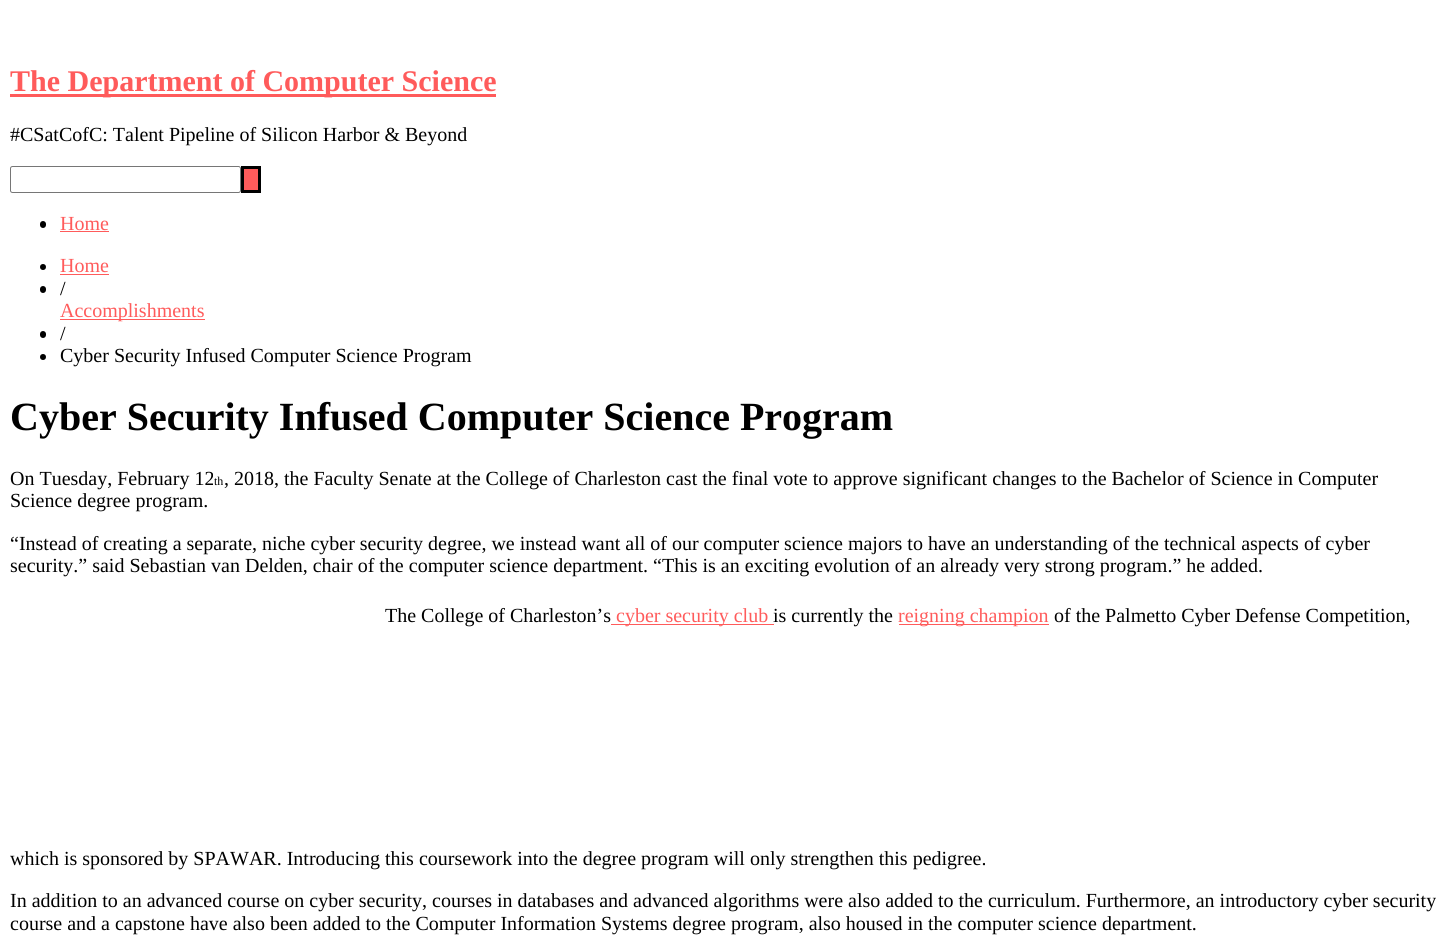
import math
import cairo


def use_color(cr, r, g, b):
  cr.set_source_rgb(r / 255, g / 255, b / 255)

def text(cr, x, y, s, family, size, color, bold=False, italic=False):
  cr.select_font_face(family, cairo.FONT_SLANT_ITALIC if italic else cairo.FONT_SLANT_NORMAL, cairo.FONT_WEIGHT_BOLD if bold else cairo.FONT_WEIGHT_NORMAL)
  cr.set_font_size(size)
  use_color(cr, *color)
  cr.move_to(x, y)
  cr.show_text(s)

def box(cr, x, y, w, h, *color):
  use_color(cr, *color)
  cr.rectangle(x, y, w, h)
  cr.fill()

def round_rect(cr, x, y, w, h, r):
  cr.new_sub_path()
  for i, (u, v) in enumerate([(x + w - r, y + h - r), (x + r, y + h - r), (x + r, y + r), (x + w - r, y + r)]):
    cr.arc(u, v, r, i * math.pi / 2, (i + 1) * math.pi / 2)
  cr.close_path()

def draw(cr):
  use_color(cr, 255, 255, 255)
  cr.paint()
  box(cr, 10, 94, 486, 3, 255, 91, 91)
  round_rect(cr, 10.5, 166.5, 230, 26, 2)
  use_color(cr, 118, 118, 118)
  cr.set_line_width(1)
  cr.stroke()
  use_color(cr, 255, 91, 91)
  cr.rectangle(242.5, 167.5, 17, 24)
  cr.fill_preserve()
  use_color(cr, 0, 0, 0)
  cr.set_line_width(3)
  cr.stroke()
  round_rect(cr, 40, 221, 6, 7, 3)
  cr.fill()
  box(cr, 60, 231, 49, 1, 255, 91, 91)
  use_color(cr, 0, 0, 0)
  cr.arc(43, 267, 3, 0, 2 * math.pi)
  cr.fill()
  box(cr, 60, 274, 49, 1, 255, 91, 91)
  use_color(cr, 0, 0, 0)
  round_rect(cr, 40, 286, 6, 7, 3)
  cr.fill()
  box(cr, 60, 319, 145, 1, 255, 91, 91)
  use_color(cr, 0, 0, 0)
  round_rect(cr, 40, 331, 6, 7, 3)
  cr.fill()
  cr.arc(43, 357, 3, 0, 2 * math.pi)
  cr.fill()
  box(cr, 611, 624, 163, 1, 255, 91, 91)
  box(cr, 899, 624, 150, 1, 255, 91, 91)
  text(cr, 10, 91, "The Department of Computer Science", "Liberation Serif", 30, (255, 91, 91), bold=True)
  text(cr, 10, 141, "#CSatCofC: Talent Pipeline of Silicon Harbor & Beyond", "Liberation Serif", 20, (0, 0, 0))
  text(cr, 60, 230, "Home", "Liberation Serif", 20, (255, 91, 91))
  text(cr, 60, 272, "Home", "Liberation Serif", 20, (255, 91, 91))
  text(cr, 60, 295, "/", "Liberation Serif", 20, (0, 0, 0))
  text(cr, 60, 317, "Accomplishments", "Liberation Serif", 20, (255, 91, 91))
  text(cr, 60, 340, "/", "Liberation Serif", 20, (0, 0, 0))
  text(cr, 60, 362, "Cyber Security Infused Computer Science Program", "Liberation Serif", 20, (0, 0, 0))
  text(cr, 10, 430, "Cyber Security Infused Computer Science Program", "Liberation Serif", 40, (0, 0, 0), bold=True)
  text(cr, 10, 485, "On Tuesday, February 12", "Liberation Serif", 20, (0, 0, 0))
  text(cr, 214, 485, "th", "Liberation Serif", 12, (0, 0, 0))
  text(cr, 224, 485, ", 2018, the Faculty Senate at the College of Charleston cast the final vote to approve significant changes to the Bachelor of Science in Computer", "Liberation Serif", 20, (0, 0, 0))
  text(cr, 10, 507, "Science degree program.", "Liberation Serif", 20, (0, 0, 0))
  text(cr, 10, 550, "“Instead of creating a separate, niche cyber security degree, we instead want all of our computer science majors to have an understanding of the technical aspects of cyber", "Liberation Serif", 20, (0, 0, 0))
  text(cr, 10, 572, "security.” said Sebastian van Delden, chair of the computer science department. “This is an exciting evolution of an already very strong program.” he added.", "Liberation Serif", 20, (0, 0, 0))
  text(cr, 385, 622, "The College of Charleston’s", "Liberation Serif", 20, (0, 0, 0))
  text(cr, 616, 622, "cyber security club", "Liberation Serif", 20, (255, 91, 91))
  text(cr, 773, 622, "is currently the", "Liberation Serif", 20, (0, 0, 0))
  text(cr, 898, 622, "reigning champion", "Liberation Serif", 20, (255, 91, 91))
  text(cr, 1054, 622, "of the Palmetto Cyber Defense Competition,", "Liberation Serif", 20, (0, 0, 0))
  text(cr, 10, 865, "which is sponsored by SPAWAR. Introducing this coursework into the degree program will only strengthen this pedigree.", "Liberation Serif", 20, (0, 0, 0))
  text(cr, 10, 907, "In addition to an advanced course on cyber security, courses in databases and advanced algorithms were also added to the curriculum. Furthermore, an introductory cyber security", "Liberation Serif", 20, (0, 0, 0))
  text(cr, 10, 930, "course and a capstone have also been added to the Computer Information Systems degree program, also housed in the computer science department.", "Liberation Serif", 20, (0, 0, 0))


surface = cairo.ImageSurface(cairo.FORMAT_RGB24, 1455, 950)
cr = cairo.Context(surface)
options = cairo.FontOptions()
options.set_hint_metrics(cairo.HINT_METRICS_OFF)
options.set_hint_style(cairo.HINT_STYLE_NONE)
cr.set_font_options(options)
cr.set_miter_limit(4)
draw(cr)
surface.write_to_png("out.png")
